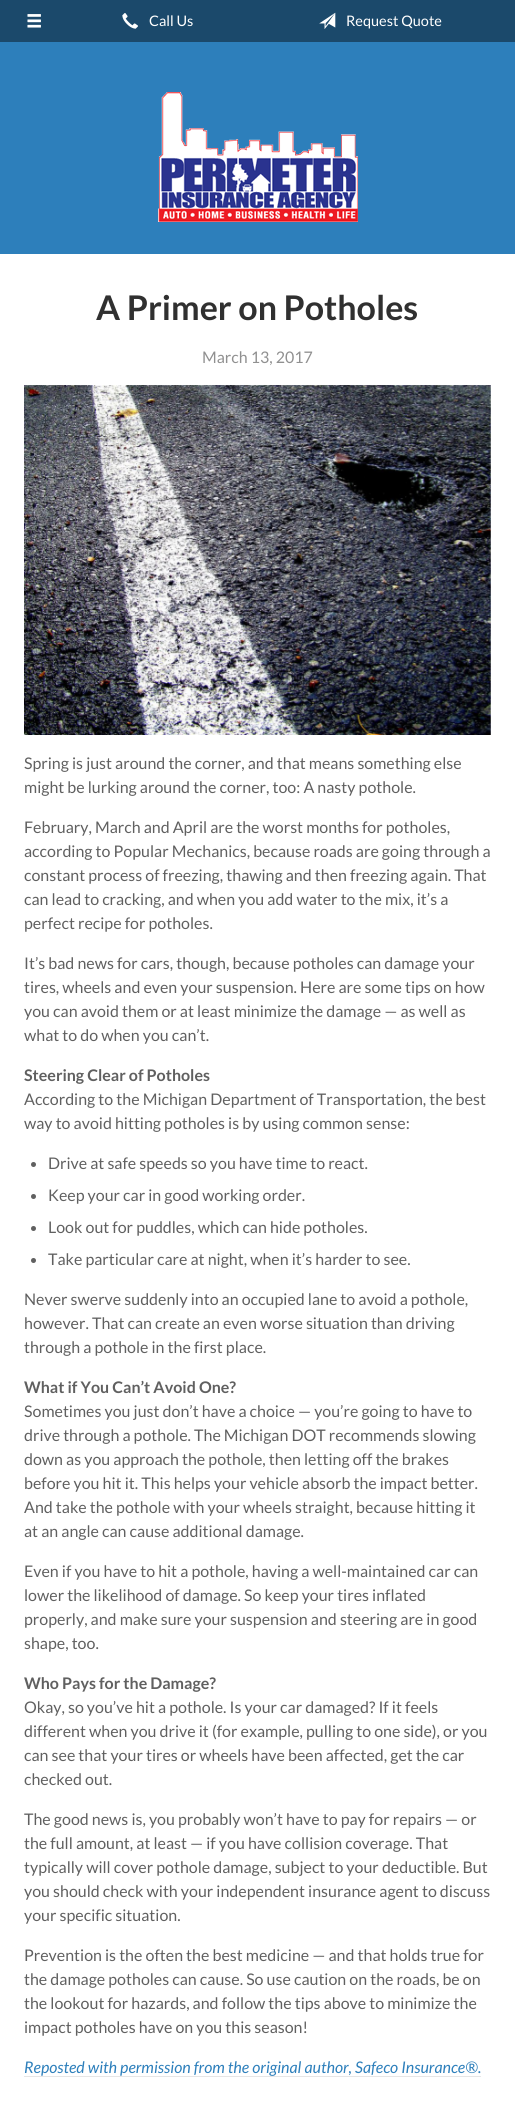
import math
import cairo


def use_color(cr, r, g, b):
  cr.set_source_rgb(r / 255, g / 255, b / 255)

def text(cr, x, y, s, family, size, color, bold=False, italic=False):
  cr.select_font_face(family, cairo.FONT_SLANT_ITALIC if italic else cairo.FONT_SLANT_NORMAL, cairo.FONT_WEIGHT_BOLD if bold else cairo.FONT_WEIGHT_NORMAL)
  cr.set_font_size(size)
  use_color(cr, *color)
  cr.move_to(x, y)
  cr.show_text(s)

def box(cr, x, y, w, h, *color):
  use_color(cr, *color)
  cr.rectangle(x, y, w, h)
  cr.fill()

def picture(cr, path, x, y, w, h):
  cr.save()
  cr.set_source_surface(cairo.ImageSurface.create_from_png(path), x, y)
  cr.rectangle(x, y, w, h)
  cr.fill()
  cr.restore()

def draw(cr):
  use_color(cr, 27, 73, 107)
  cr.paint()
  picture(cr, "img_01.png", 27, 14, 14, 14)
  picture(cr, "img_02.png", 122, 13, 16, 16)
  picture(cr, "img_03.png", 319, 12, 17, 17)
  box(cr, 0, 42, 515, 212, 45, 127, 187)
  picture(cr, "img_04.png", 158, 92, 200, 130)
  box(cr, 0, 254, 515, 1849, 255, 255, 255)
  picture(cr, "img_05.png", 24, 385, 467, 350)
  use_color(cr, 96, 96, 96)
  cr.arc(33.5, 1164.5, 2.5, 0, 2 * math.pi)
  cr.fill()
  cr.arc(33.5, 1196.5, 2.5, 0, 2 * math.pi)
  cr.fill()
  cr.arc(33.5, 1228.5, 2.5, 0, 2 * math.pi)
  cr.fill()
  cr.arc(33.5, 1260.5, 2.5, 0, 2 * math.pi)
  cr.fill()
  box(cr, 24, 2076, 457, 1, 230, 230, 230)
  text(cr, 149, 26, "Call Us", "Lato", 14.5, (255, 255, 255))
  text(cr, 346, 26, "Request Quote", "Lato", 14.5, (255, 255, 255))
  text(cr, 96, 320, "A Primer on Potholes", "Lato", 34, (48, 48, 48), bold=True)
  text(cr, 202, 363, "March 13, 2017", "Lato", 16, (144, 144, 144))
  text(cr, 24, 769, "Spring is just around the corner, and that means something else", "Lato", 16, (96, 96, 96))
  text(cr, 24, 793, "might be lurking around the corner, too: A nasty pothole.", "Lato", 16, (96, 96, 96))
  text(cr, 24, 833, "February, March and April are the worst months for potholes,", "Lato", 16, (96, 96, 96))
  text(cr, 24, 857, "according to Popular Mechanics, because roads are going through a", "Lato", 16, (96, 96, 96))
  text(cr, 24, 881, "constant process of freezing, thawing and then freezing again. That", "Lato", 16, (96, 96, 96))
  text(cr, 24, 905, "can lead to cracking, and when you add water to the mix, it’s a", "Lato", 16, (96, 96, 96))
  text(cr, 24, 929, "perfect recipe for potholes.", "Lato", 16, (96, 96, 96))
  text(cr, 24, 969, "It’s bad news for cars, though, because potholes can damage your", "Lato", 16, (96, 96, 96))
  text(cr, 24, 993, "tires, wheels and even your suspension. Here are some tips on how", "Lato", 16, (96, 96, 96))
  text(cr, 24, 1017, "you can avoid them or at least minimize the damage — as well as", "Lato", 16, (96, 96, 96))
  text(cr, 24, 1041, "what to do when you can’t.", "Lato", 16, (96, 96, 96))
  text(cr, 24, 1081, "Steering Clear of Potholes", "Lato", 16, (96, 96, 96), bold=True)
  text(cr, 24, 1105, "According to the Michigan Department of Transportation, the best", "Lato", 16, (96, 96, 96))
  text(cr, 24, 1129, "way to avoid hitting potholes is by using common sense:", "Lato", 16, (96, 96, 96))
  text(cr, 48, 1169, "Drive at safe speeds so you have time to react.", "Lato", 16, (96, 96, 96))
  text(cr, 48, 1201, "Keep your car in good working order.", "Lato", 16, (96, 96, 96))
  text(cr, 48, 1233, "Look out for puddles, which can hide potholes.", "Lato", 16, (96, 96, 96))
  text(cr, 48, 1265, "Take particular care at night, when it’s harder to see.", "Lato", 16, (96, 96, 96))
  text(cr, 24, 1305, "Never swerve suddenly into an occupied lane to avoid a pothole,", "Lato", 16, (96, 96, 96))
  text(cr, 24, 1329, "however. That can create an even worse situation than driving", "Lato", 16, (96, 96, 96))
  text(cr, 24, 1353, "through a pothole in the first place.", "Lato", 16, (96, 96, 96))
  text(cr, 24, 1393, "What if You Can’t Avoid One?", "Lato", 16, (96, 96, 96), bold=True)
  text(cr, 24, 1417, "Sometimes you just don’t have a choice — you’re going to have to", "Lato", 16, (96, 96, 96))
  text(cr, 24, 1441, "drive through a pothole. The Michigan DOT recommends slowing", "Lato", 16, (96, 96, 96))
  text(cr, 24, 1465, "down as you approach the pothole, then letting off the brakes", "Lato", 16, (96, 96, 96))
  text(cr, 24, 1489, "before you hit it. This helps your vehicle absorb the impact better.", "Lato", 16, (96, 96, 96))
  text(cr, 24, 1513, "And take the pothole with your wheels straight, because hitting it", "Lato", 16, (96, 96, 96))
  text(cr, 24, 1537, "at an angle can cause additional damage.", "Lato", 16, (96, 96, 96))
  text(cr, 24, 1577, "Even if you have to hit a pothole, having a well-maintained car can", "Lato", 16, (96, 96, 96))
  text(cr, 24, 1601, "lower the likelihood of damage. So keep your tires inflated", "Lato", 16, (96, 96, 96))
  text(cr, 24, 1625, "properly, and make sure your suspension and steering are in good", "Lato", 16, (96, 96, 96))
  text(cr, 24, 1649, "shape, too.", "Lato", 16, (96, 96, 96))
  text(cr, 24, 1689, "Who Pays for the Damage?", "Lato", 16, (96, 96, 96), bold=True)
  text(cr, 24, 1713, "Okay, so you’ve hit a pothole. Is your car damaged? If it feels", "Lato", 16, (96, 96, 96))
  text(cr, 24, 1737, "different when you drive it (for example, pulling to one side), or you", "Lato", 16, (96, 96, 96))
  text(cr, 24, 1761, "can see that your tires or wheels have been affected, get the car", "Lato", 16, (96, 96, 96))
  text(cr, 24, 1785, "checked out.", "Lato", 16, (96, 96, 96))
  text(cr, 24, 1825, "The good news is, you probably won’t have to pay for repairs — or", "Lato", 16, (96, 96, 96))
  text(cr, 24, 1849, "the full amount, at least — if you have collision coverage. That", "Lato", 16, (96, 96, 96))
  text(cr, 24, 1873, "typically will cover pothole damage, subject to your deductible. But", "Lato", 16, (96, 96, 96))
  text(cr, 24, 1897, "you should check with your independent insurance agent to discuss", "Lato", 16, (96, 96, 96))
  text(cr, 24, 1921, "your specific situation.", "Lato", 16, (96, 96, 96))
  text(cr, 24, 1961, "Prevention is the often the best medicine — and that holds true for", "Lato", 16, (96, 96, 96))
  text(cr, 24, 1985, "the damage potholes can cause. So use caution on the roads, be on", "Lato", 16, (96, 96, 96))
  text(cr, 24, 2009, "the lookout for hazards, and follow the tips above to minimize the", "Lato", 16, (96, 96, 96))
  text(cr, 24, 2033, "impact potholes have on you this season!", "Lato", 16, (96, 96, 96))
  text(cr, 24, 2073, "Reposted with permission from the original author, Safeco Insurance®.", "Lato", 16, (45, 127, 187), italic=True)


surface = cairo.ImageSurface(cairo.FORMAT_RGB24, 515, 2103)
cr = cairo.Context(surface)
options = cairo.FontOptions()
options.set_hint_metrics(cairo.HINT_METRICS_OFF)
options.set_hint_style(cairo.HINT_STYLE_NONE)
cr.set_font_options(options)
cr.set_miter_limit(4)
draw(cr)
surface.write_to_png("out.png")
